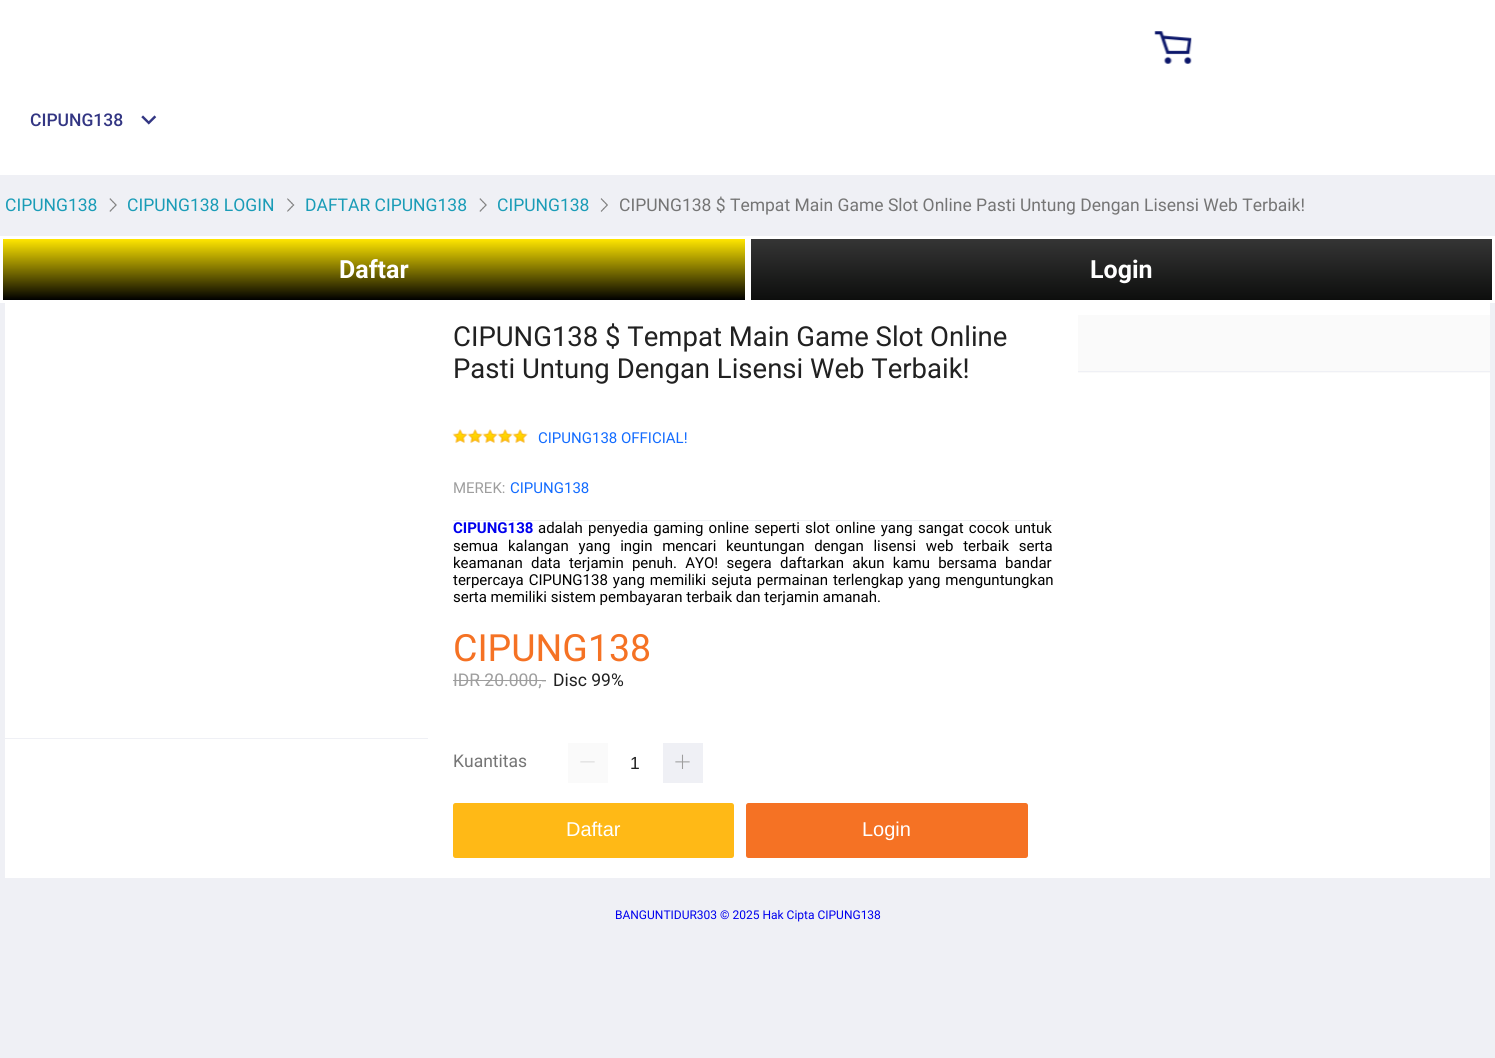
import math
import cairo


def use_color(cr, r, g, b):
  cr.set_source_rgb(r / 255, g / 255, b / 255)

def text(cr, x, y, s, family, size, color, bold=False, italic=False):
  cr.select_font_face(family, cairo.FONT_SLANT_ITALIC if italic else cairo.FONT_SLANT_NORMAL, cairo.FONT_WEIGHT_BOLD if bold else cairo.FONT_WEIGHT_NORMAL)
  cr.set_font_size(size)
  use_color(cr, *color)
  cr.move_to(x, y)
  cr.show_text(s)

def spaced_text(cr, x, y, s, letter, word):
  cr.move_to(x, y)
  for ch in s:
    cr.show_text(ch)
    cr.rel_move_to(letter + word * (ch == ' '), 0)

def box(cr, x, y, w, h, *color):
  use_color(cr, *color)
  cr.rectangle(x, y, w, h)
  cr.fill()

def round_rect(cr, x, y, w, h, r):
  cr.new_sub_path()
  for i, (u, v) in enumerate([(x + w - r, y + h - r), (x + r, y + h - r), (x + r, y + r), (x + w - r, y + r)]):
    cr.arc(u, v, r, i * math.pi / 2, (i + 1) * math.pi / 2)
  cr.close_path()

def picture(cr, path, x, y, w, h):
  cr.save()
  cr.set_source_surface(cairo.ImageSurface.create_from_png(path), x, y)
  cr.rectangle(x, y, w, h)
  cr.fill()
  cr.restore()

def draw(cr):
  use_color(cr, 239, 240, 245)
  cr.paint()
  box(cr, 0, 0, 1495, 175, 255, 255, 255)
  picture(cr, "img_01.png", 1154, 31, 38, 33)
  picture(cr, "img_02.png", 141, 115, 16, 10)
  picture(cr, "img_03.png", 109, 198, 8, 14)
  picture(cr, "img_04.png", 287, 198, 8, 14)
  picture(cr, "img_03.png", 479, 198, 8, 14)
  picture(cr, "img_05.png", 600, 198, 8, 14)
  gradient = cairo.LinearGradient(374, 300, 374, 239)
  gradient.add_color_stop_rgba(0, 0, 0, 0, 1)
  gradient.add_color_stop_rgba(1, 1, 0.902, 0, 1)
  cr.set_source(gradient)
  cr.rectangle(3, 239, 742, 61)
  cr.fill()
  cr.rectangle(1.5, 237.5, 745, 64)
  use_color(cr, 255, 255, 255)
  cr.set_line_width(3)
  cr.stroke()
  gradient = cairo.LinearGradient(1121, 300, 1121, 239)
  gradient.add_color_stop_rgba(0, 0.051, 0.055, 0.051, 1)
  gradient.add_color_stop_rgba(1, 0.208, 0.208, 0.208, 1)
  cr.set_source(gradient)
  cr.rectangle(751, 239, 741, 61)
  cr.fill()
  cr.rectangle(749.5, 237.5, 744, 64)
  use_color(cr, 255, 255, 255)
  cr.stroke()
  box(cr, 5, 303, 1485, 575, 255, 255, 255)
  box(cr, 5, 738, 423, 1, 239, 240, 245)
  picture(cr, "img_06.png", 452, 429, 16, 14)
  picture(cr, "img_07.png", 467, 429, 16, 14)
  picture(cr, "img_07.png", 482, 429, 16, 14)
  picture(cr, "img_07.png", 497, 429, 16, 14)
  picture(cr, "img_07.png", 512, 429, 16, 14)
  box(cr, 453, 520, 600, 1, 239, 240, 245)
  box(cr, 453, 680, 93, 1, 158, 158, 158)
  box(cr, 568, 743, 40, 40, 250, 250, 250)
  picture(cr, "img_08.png", 580, 761, 15, 2)
  box(cr, 663, 743, 40, 40, 239, 240, 245)
  picture(cr, "img_09.png", 675, 754, 15, 15)
  use_color(cr, 255, 185, 22)
  round_rect(cr, 453, 803, 281, 55, 2.5)
  cr.fill()
  use_color(cr, 245, 114, 36)
  round_rect(cr, 746, 803, 282, 55, 2.5)
  cr.fill()
  box(cr, 1078, 315, 412, 58, 250, 250, 250)
  box(cr, 1078, 371, 412, 1, 239, 240, 245)
  text(cr, 30, 126, "CIPUNG138", "Roboto Medium", 17.5, (51, 54, 131))
  text(cr, 5, 211, "CIPUNG138", "Roboto", 17.5, (26, 156, 183))
  text(cr, 127, 211, "CIPUNG138 LOGIN", "Roboto", 17.5, (26, 156, 183))
  text(cr, 305, 211, "DAFTAR CIPUNG138", "Roboto", 17.5, (26, 156, 183))
  text(cr, 497, 211, "CIPUNG138", "Roboto", 17.5, (26, 156, 183))
  text(cr, 619, 211, "CIPUNG138 $ Tempat Main Game Slot Online Pasti Untung Dengan Lisensi Web Terbaik!", "Roboto", 17.5, (117, 117, 117))
  text(cr, 339, 278, "Daftar", "Roboto", 25, (255, 255, 255), bold=True)
  text(cr, 1090, 278, "Login", "Roboto", 25, (255, 255, 255), bold=True)
  text(cr, 453, 346, "CIPUNG138 $ Tempat Main Game Slot Online", "Roboto", 27.5, (33, 33, 33))
  text(cr, 453, 378, "Pasti Untung Dengan Lisensi Web Terbaik!", "Roboto", 27.5, (33, 33, 33))
  text(cr, 538, 443, "CIPUNG138 OFFICIAL!", "Roboto", 15, (19, 108, 255))
  text(cr, 453, 493, "MEREK:", "Roboto", 15, (158, 158, 158))
  text(cr, 510, 493, "CIPUNG138", "Roboto", 15, (19, 108, 255))
  text(cr, 453, 533, "CIPUNG138", "Roboto", 15, (0, 0, 238), bold=True)
  cr.select_font_face("Roboto")
  use_color(cr, 0, 0, 0)
  spaced_text(cr, 538, 533, "adalah penyedia gaming online seperti slot online yang sangat cocok untuk", 0, 1.5)
  spaced_text(cr, 453, 551, "semua kalangan yang ingin mencari keuntungan dengan lisensi web terbaik serta", 0, 6)
  spaced_text(cr, 453, 568, "keamanan data terjamin penuh. AYO! segera daftarkan akun kamu bersama bandar", 0, 4.5)
  spaced_text(cr, 453, 585, "terpercaya CIPUNG138 yang memiliki sejuta permainan terlengkap yang menguntungkan", 0, 1.25)
  text(cr, 453, 602, "serta memiliki sistem pembayaran terbaik dan terjamin amanah.", "Roboto", 15, (0, 0, 0))
  text(cr, 453, 661, "CIPUNG138", "Roboto", 37.5, (245, 114, 36))
  text(cr, 453, 686, "IDR 20.000,-", "Roboto", 17.5, (158, 158, 158))
  text(cr, 553, 686, "Disc 99%", "Roboto", 17.5, (33, 33, 33))
  text(cr, 453, 767, "Kuantitas", "Roboto", 17.5, (117, 117, 117))
  text(cr, 630, 769, "1", "Liberation Sans", 17.5, (33, 33, 33))
  text(cr, 566, 836, "Daftar", "Liberation Sans", 20, (255, 255, 255))
  text(cr, 862, 836, "Login", "Liberation Sans", 20, (255, 255, 255))
  text(cr, 615, 919, "BANGUNTIDUR303 © 2025 Hak Cipta CIPUNG138", "Roboto", 12, (0, 0, 238))


surface = cairo.ImageSurface(cairo.FORMAT_RGB24, 1495, 1058)
cr = cairo.Context(surface)
options = cairo.FontOptions()
options.set_hint_metrics(cairo.HINT_METRICS_OFF)
options.set_hint_style(cairo.HINT_STYLE_NONE)
cr.set_font_options(options)
cr.set_miter_limit(4)
draw(cr)
surface.write_to_png("out.png")
